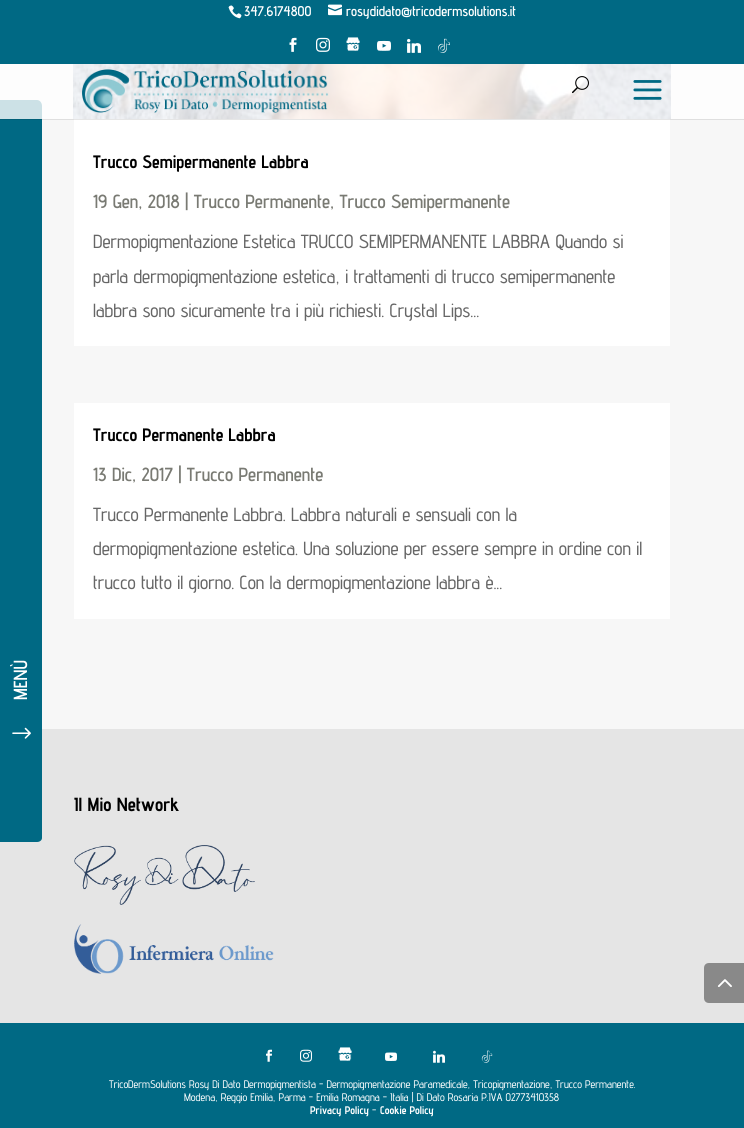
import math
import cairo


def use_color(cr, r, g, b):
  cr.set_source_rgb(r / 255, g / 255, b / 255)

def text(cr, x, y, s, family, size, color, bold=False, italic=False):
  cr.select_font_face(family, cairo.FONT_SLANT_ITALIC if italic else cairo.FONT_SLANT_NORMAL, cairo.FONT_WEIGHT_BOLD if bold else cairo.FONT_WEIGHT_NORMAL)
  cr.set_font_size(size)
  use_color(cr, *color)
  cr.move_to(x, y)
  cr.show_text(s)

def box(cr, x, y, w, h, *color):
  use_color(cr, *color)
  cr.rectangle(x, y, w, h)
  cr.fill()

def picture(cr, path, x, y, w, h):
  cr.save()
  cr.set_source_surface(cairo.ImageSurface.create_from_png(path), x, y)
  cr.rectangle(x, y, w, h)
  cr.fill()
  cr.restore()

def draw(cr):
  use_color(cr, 229, 229, 229)
  cr.paint()
  box(cr, 0, 0, 744, 64, 0, 105, 132)
  picture(cr, "img_01.png", 228, 5, 14, 14)
  picture(cr, "img_02.png", 328, 4, 14, 12)
  picture(cr, "img_03.png", 289, 37, 8, 15)
  picture(cr, "img_04.png", 316, 37, 14, 15)
  picture(cr, "img_05.png", 346, 37, 14, 14)
  picture(cr, "img_06.png", 377, 40, 14, 11)
  picture(cr, "img_07.png", 407, 38, 14, 15)
  picture(cr, "img_08.png", 438, 38, 12, 15)
  box(cr, 0, 64, 744, 665, 247, 247, 247)
  box(cr, 74, 119, 596, 227, 255, 255, 255)
  use_color(cr, 0, 105, 132)
  cr.new_path()
  cr.move_to(-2, 842)
  cr.line_to(-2, 100)
  cr.line_to(37, 100)
  cr.curve_to(40, 100, 42, 103, 42, 106)
  cr.line_to(42, 838)
  cr.curve_to(42, 840, 40, 842, 37, 842)
  cr.close_path()
  cr.fill()
  cr.set_source_rgba(0, 0, 0, 0.1)
  cr.rectangle(0, 119, 744, 1)
  cr.fill()
  picture(cr, "img_12.png", 73, 64, 598, 55)
  cr.set_source_rgba(1, 1, 1, 0.8)
  cr.rectangle(0, 64, 744, 55)
  cr.fill()
  picture(cr, "img_09.png", 82, 69, 247, 44)
  picture(cr, "img_10.png", 572, 76, 17, 18)
  picture(cr, "img_11.png", 633, 80, 29, 20)
  box(cr, 74, 403, 596, 216, 255, 255, 255)
  picture(cr, "img_13.png", 12, 727, 19, 12)
  picture(cr, "img_14.png", 74, 845, 181, 60)
  picture(cr, "img_15.png", 74, 924, 200, 50)
  box(cr, 0, 1023, 744, 105, 0, 105, 132)
  picture(cr, "img_16.png", 266, 1049, 6, 13)
  picture(cr, "img_17.png", 300, 1049, 12, 13)
  picture(cr, "img_05.png", 338, 1047, 14, 14)
  picture(cr, "img_18.png", 385, 1052, 12, 9)
  picture(cr, "img_19.png", 433, 1050, 12, 13)
  picture(cr, "img_20.png", 481, 1050, 12, 13)
  use_color(cr, 137, 137, 137)
  cr.new_path()
  cr.move_to(709, 963)
  cr.line_to(744, 963)
  cr.line_to(744, 1003)
  cr.line_to(709, 1003)
  cr.curve_to(706, 1003, 704, 1001, 704, 998)
  cr.line_to(704, 968)
  cr.curve_to(704, 965, 706, 963, 709, 963)
  cr.close_path()
  cr.fill()
  picture(cr, "img_21.png", 717, 979, 15, 8)
  text(cr, 244, 16, "347.6174800", "Advent Pro SemiBold", 14, (255, 255, 255))
  text(cr, 346, 16, "rosydidato@tricodermsolutions.it", "Advent Pro SemiBold", 14, (255, 255, 255))
  text(cr, 93, 168, "Trucco Semipermanente Labbra", "Advent Pro", 18, (0, 0, 0), bold=True)
  text(cr, 93, 208, "19 Gen, 2018 | Trucco Permanente, Trucco Semipermanente", "Advent Pro SemiBold", 19, (121, 122, 115))
  text(cr, 93, 248, "Dermopigmentazione Estetica TRUCCO SEMIPERMANENTE LABBRA Quando si", "Advent Pro Medium", 19, (102, 102, 102))
  text(cr, 93, 283, "parla dermopigmentazione estetica, i trattamenti di trucco semipermanente", "Advent Pro Medium", 19, (102, 102, 102))
  text(cr, 93, 317, "labbra sono sicuramente tra i più richiesti. Crystal Lips...", "Advent Pro Medium", 19, (102, 102, 102))
  text(cr, 93, 441, "Trucco Permanente Labbra", "Advent Pro", 18, (0, 0, 0), bold=True)
  text(cr, 93, 481, "13 Dic, 2017 | Trucco Permanente", "Advent Pro SemiBold", 19, (121, 122, 115))
  text(cr, 93, 521, "Trucco Permanente Labbra. Labbra naturali e sensuali con la", "Advent Pro Medium", 19, (102, 102, 102))
  text(cr, 93, 555, "dermopigmentazione estetica. Una soluzione per essere sempre in ordine con il", "Advent Pro Medium", 19, (102, 102, 102))
  text(cr, 93, 589, "trucco tutto il giorno. Con la dermopigmentazione labbra è...", "Advent Pro Medium", 19, (102, 102, 102))
  cr.save()
  cr.translate(27, 700)
  cr.rotate(-90 * math.pi / 180)
  text(cr, 0, 0, "MENÙ", "Advent Pro SemiBold", 19, (255, 255, 255))
  cr.restore()
  text(cr, 74, 811, "Il Mio Network", "Advent Pro", 19, (0, 0, 0), bold=True)
  text(cr, 109, 1088, "TricoDermSolutions Rosy Di Dato Dermopigmentista - Dermopigmentazione Paramedicale, Tricopigmentazione, Trucco Permanente.", "Advent Pro Medium", 11, (255, 255, 255))
  text(cr, 184, 1101, "Modena, Reggio Emilia, Parma - Emilia Romagna - Italia | Di Dato Rosaria P.IVA 02773410358", "Advent Pro Medium", 11, (255, 255, 255))
  text(cr, 310, 1114, "Privacy Policy", "Advent Pro", 11, (255, 255, 255), bold=True)
  text(cr, 372, 1114, "-", "Advent Pro Medium", 11, (255, 255, 255))
  text(cr, 380, 1114, "Cookie Policy", "Advent Pro", 11, (255, 255, 255), bold=True)


surface = cairo.ImageSurface(cairo.FORMAT_RGB24, 744, 1128)
cr = cairo.Context(surface)
options = cairo.FontOptions()
options.set_hint_metrics(cairo.HINT_METRICS_OFF)
options.set_hint_style(cairo.HINT_STYLE_NONE)
cr.set_font_options(options)
cr.set_miter_limit(4)
draw(cr)
surface.write_to_png("out.png")
